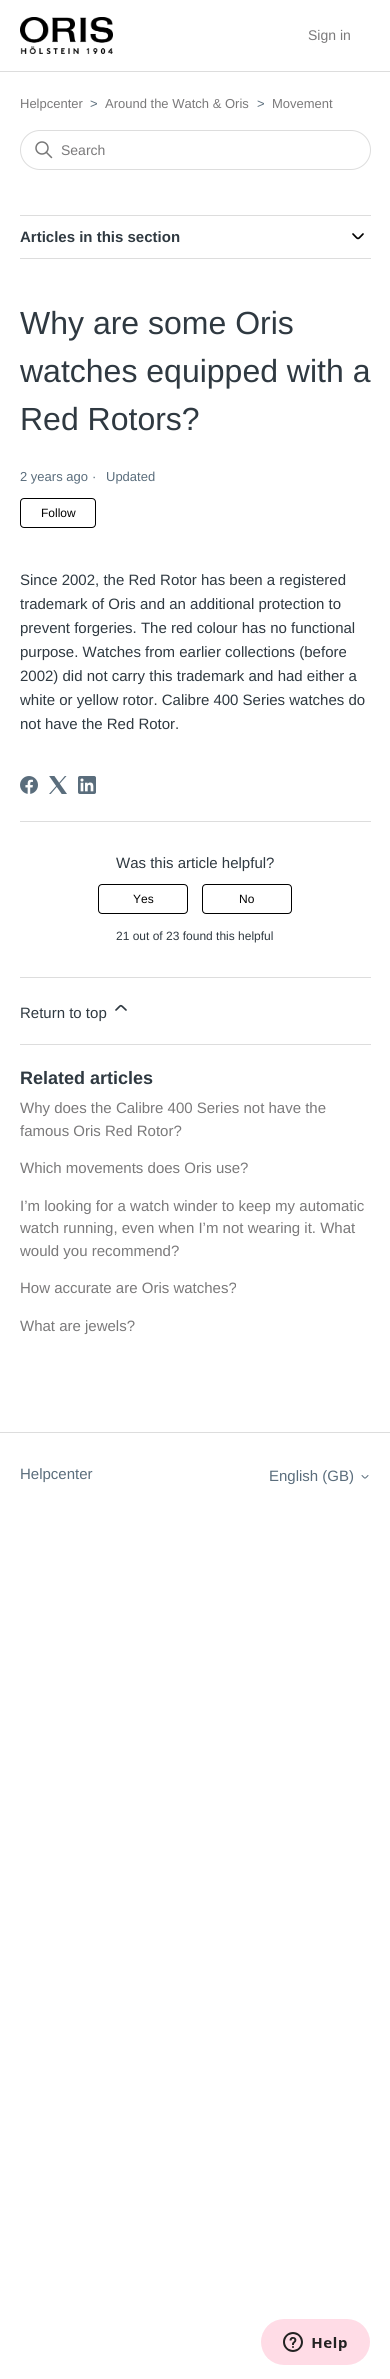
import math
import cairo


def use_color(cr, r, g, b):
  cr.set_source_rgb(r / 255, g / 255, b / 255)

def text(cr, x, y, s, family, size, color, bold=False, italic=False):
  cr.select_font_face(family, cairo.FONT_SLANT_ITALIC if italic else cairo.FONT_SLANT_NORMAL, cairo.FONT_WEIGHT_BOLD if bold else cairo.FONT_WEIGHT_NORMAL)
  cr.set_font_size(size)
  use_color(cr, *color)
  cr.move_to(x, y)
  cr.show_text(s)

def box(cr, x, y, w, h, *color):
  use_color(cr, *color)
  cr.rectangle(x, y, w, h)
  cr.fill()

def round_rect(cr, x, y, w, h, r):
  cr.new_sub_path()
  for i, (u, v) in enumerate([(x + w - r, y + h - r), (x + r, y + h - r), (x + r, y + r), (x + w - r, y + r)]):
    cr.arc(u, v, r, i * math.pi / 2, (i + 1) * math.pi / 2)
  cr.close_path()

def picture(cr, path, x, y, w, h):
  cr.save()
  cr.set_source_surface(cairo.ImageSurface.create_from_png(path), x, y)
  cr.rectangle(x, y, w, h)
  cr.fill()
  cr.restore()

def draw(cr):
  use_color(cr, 255, 255, 255)
  cr.paint()
  picture(cr, "img_01.png", 20, 17, 93, 37)
  box(cr, 0, 71, 390, 1, 221, 221, 221)
  round_rect(cr, 20.5, 130.5, 350, 39, 19.5)
  cr.set_line_width(1)
  cr.stroke()
  picture(cr, "img_02.png", 35, 141, 18, 18)
  box(cr, 20, 215, 351, 1, 221, 221, 221)
  box(cr, 20, 258, 351, 1, 221, 221, 221)
  cr.new_path()
  cr.move_to(353, 234)
  cr.curve_to(359, 240, 357, 240, 363, 234)
  use_color(cr, 0, 0, 0)
  cr.set_line_width(1.7)
  cr.set_line_cap(cairo.LINE_CAP_ROUND)
  cr.stroke()
  round_rect(cr, 20.5, 498.5, 75, 29, 3.5)
  cr.set_line_width(1)
  cr.set_line_cap(cairo.LINE_CAP_BUTT)
  cr.stroke()
  picture(cr, "img_03.png", 20, 776, 18, 18)
  picture(cr, "img_04.png", 49, 776, 18, 18)
  picture(cr, "img_05.png", 78, 776, 18, 18)
  box(cr, 20, 821, 351, 1, 221, 221, 221)
  round_rect(cr, 98.5, 884.5, 89, 29, 3.5)
  use_color(cr, 0, 0, 0)
  cr.stroke()
  round_rect(cr, 202.5, 884.5, 89, 29, 3.5)
  cr.stroke()
  box(cr, 20, 977, 351, 1, 221, 221, 221)
  cr.new_path()
  cr.move_to(126, 1010)
  cr.curve_to(119.5, 1004, 122, 1004.5, 116, 1010)
  use_color(cr, 47, 57, 65)
  cr.set_line_width(1.7)
  cr.set_line_cap(cairo.LINE_CAP_ROUND)
  cr.stroke()
  box(cr, 20, 1044, 351, 1, 221, 221, 221)
  box(cr, 0, 1432, 390, 1, 221, 221, 221)
  cr.new_path()
  cr.move_to(362, 1475.5)
  cr.curve_to(365.5, 1479, 364.5, 1479, 368, 1475.5)
  use_color(cr, 90, 109, 124)
  cr.set_line_width(1)
  cr.stroke()
  picture(cr, "img_06.png", 261, 2319, 109, 46)
  text(cr, 308, 40, "Sign in", "Liberation Sans", 14, (122, 121, 122))
  text(cr, 20, 108, "Helpcenter", "Liberation Sans", 13, (122, 121, 122))
  text(cr, 90, 108, ">", "Liberation Sans", 13, (90, 109, 124))
  text(cr, 105, 108, "Around the Watch & Oris", "Liberation Sans", 13, (122, 121, 122))
  text(cr, 257, 108, ">", "Liberation Sans", 13, (90, 109, 124))
  text(cr, 272, 108, "Movement", "Liberation Sans", 13, (122, 121, 122))
  text(cr, 61, 155, "Search", "Liberation Sans", 14, (122, 121, 122))
  text(cr, 20, 242, "Articles in this section", "Liberation Sans", 15, (47, 57, 65), bold=True)
  text(cr, 20, 334, "Why are some Oris", "Liberation Sans", 32, (47, 57, 65))
  text(cr, 20, 382, "watches equipped with a", "Liberation Sans", 32, (47, 57, 65))
  text(cr, 20, 430, "Red Rotors?", "Liberation Sans", 32, (47, 57, 65))
  text(cr, 20, 481, "2 years ago", "Liberation Sans", 13, (90, 109, 124))
  text(cr, 92, 481, "·", "Liberation Sans", 13, (90, 109, 124))
  text(cr, 106, 481, "Updated", "Liberation Sans", 13, (90, 109, 124))
  text(cr, 41, 517, "Follow", "Liberation Sans", 12, (0, 0, 0))
  text(cr, 20, 585, "Since 2002, the Red Rotor has been a registered", "Liberation Sans", 15, (47, 57, 65))
  text(cr, 20, 609, "trademark of Oris and an additional protection to", "Liberation Sans", 15, (47, 57, 65))
  text(cr, 20, 633, "prevent forgeries. The red colour has no functional", "Liberation Sans", 15, (47, 57, 65))
  text(cr, 20, 657, "purpose. Watches from earlier collections (before", "Liberation Sans", 15, (47, 57, 65))
  text(cr, 20, 681, "2002) did not carry this trademark and had either a", "Liberation Sans", 15, (47, 57, 65))
  text(cr, 20, 705, "white or yellow rotor. Calibre 400 Series watches do", "Liberation Sans", 15, (47, 57, 65))
  text(cr, 20, 729, "not have the Red Rotor.", "Liberation Sans", 15, (47, 57, 65))
  text(cr, 116, 868, "Was this article helpful?", "Liberation Sans", 15, (47, 57, 65))
  text(cr, 133, 903, "Yes", "Liberation Sans", 12, (0, 0, 0))
  text(cr, 239, 903, "No", "Liberation Sans", 12, (0, 0, 0))
  text(cr, 116, 940, "21 out of 23 found this helpful", "Liberation Sans", 12, (47, 57, 65))
  text(cr, 20, 1018, "Return to top", "Liberation Sans", 15, (47, 57, 65))
  text(cr, 20, 1084, "Related articles", "Liberation Sans", 18, (47, 57, 65), bold=True)
  text(cr, 20, 1113, "Why does the Calibre 400 Series not have the", "Liberation Sans", 15, (122, 121, 122))
  text(cr, 20, 1136, "famous Oris Red Rotor?", "Liberation Sans", 15, (122, 121, 122))
  text(cr, 20, 1173, "Which movements does Oris use?", "Liberation Sans", 15, (122, 121, 122))
  text(cr, 20, 1211, "I’m looking for a watch winder to keep my automatic", "Liberation Sans", 15, (122, 121, 122))
  text(cr, 20, 1233, "watch running, even when I’m not wearing it. What", "Liberation Sans", 15, (122, 121, 122))
  text(cr, 20, 1256, "would you recommend?", "Liberation Sans", 15, (122, 121, 122))
  text(cr, 20, 1293, "How accurate are Oris watches?", "Liberation Sans", 15, (122, 121, 122))
  text(cr, 20, 1331, "What are jewels?", "Liberation Sans", 15, (122, 121, 122))
  text(cr, 20, 1479, "Helpcenter", "Liberation Sans", 15, (90, 109, 124))
  text(cr, 269, 1481, "English (GB)", "Liberation Sans", 15, (90, 109, 124))


surface = cairo.ImageSurface(cairo.FORMAT_RGB24, 390, 2379)
cr = cairo.Context(surface)
options = cairo.FontOptions()
options.set_hint_metrics(cairo.HINT_METRICS_OFF)
options.set_hint_style(cairo.HINT_STYLE_NONE)
cr.set_font_options(options)
cr.set_miter_limit(4)
draw(cr)
surface.write_to_png("out.png")
